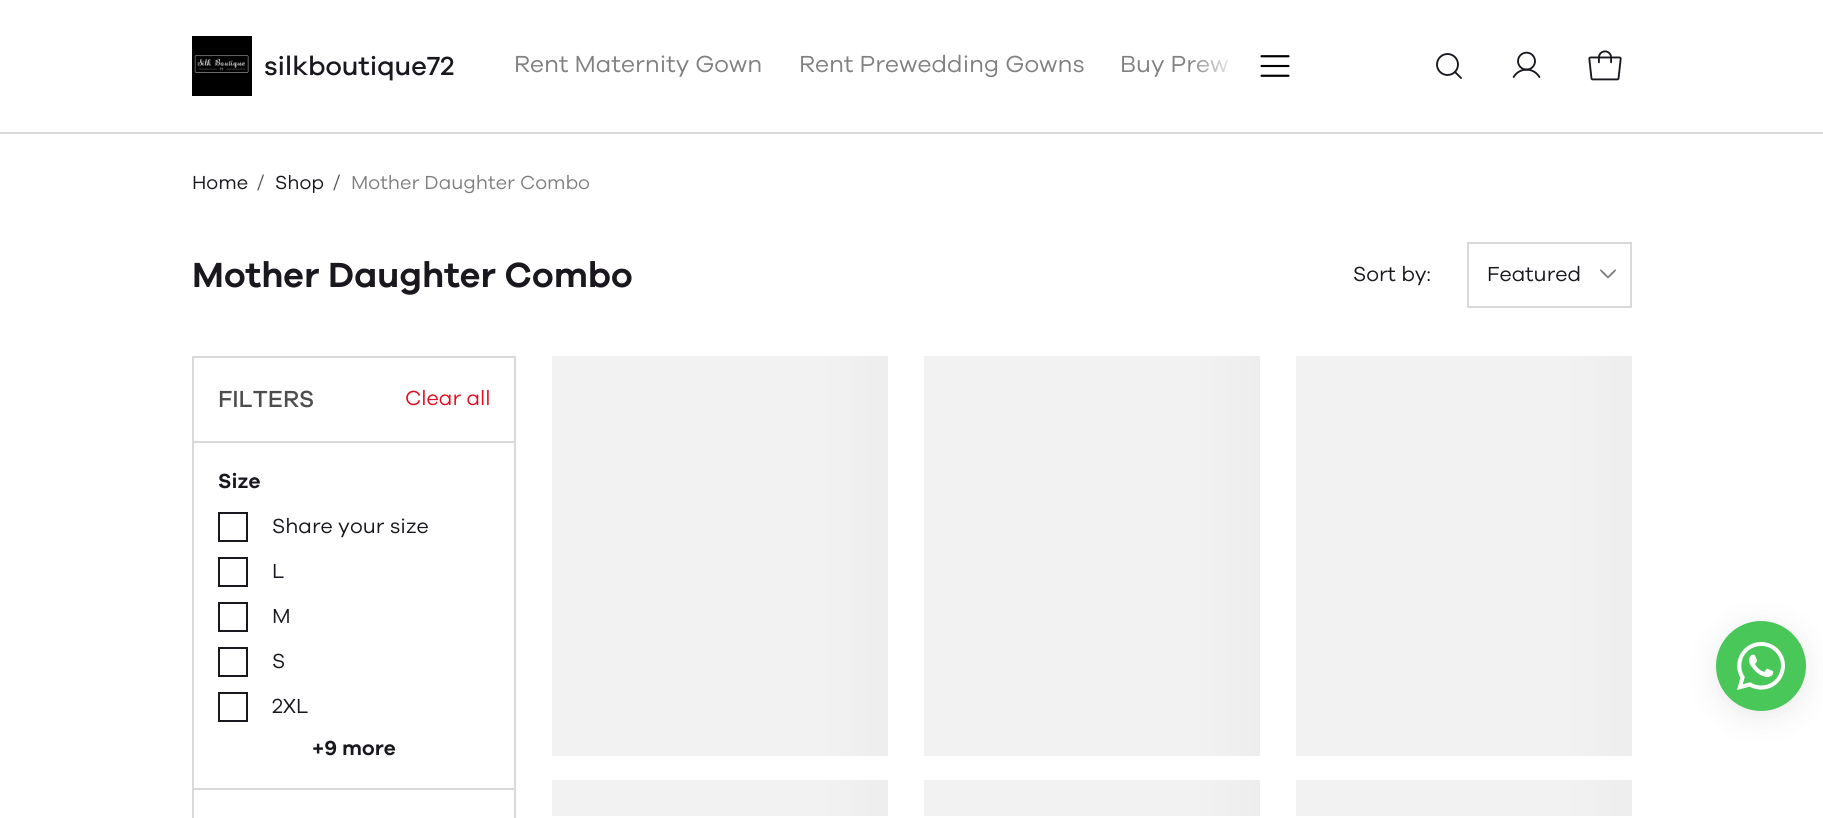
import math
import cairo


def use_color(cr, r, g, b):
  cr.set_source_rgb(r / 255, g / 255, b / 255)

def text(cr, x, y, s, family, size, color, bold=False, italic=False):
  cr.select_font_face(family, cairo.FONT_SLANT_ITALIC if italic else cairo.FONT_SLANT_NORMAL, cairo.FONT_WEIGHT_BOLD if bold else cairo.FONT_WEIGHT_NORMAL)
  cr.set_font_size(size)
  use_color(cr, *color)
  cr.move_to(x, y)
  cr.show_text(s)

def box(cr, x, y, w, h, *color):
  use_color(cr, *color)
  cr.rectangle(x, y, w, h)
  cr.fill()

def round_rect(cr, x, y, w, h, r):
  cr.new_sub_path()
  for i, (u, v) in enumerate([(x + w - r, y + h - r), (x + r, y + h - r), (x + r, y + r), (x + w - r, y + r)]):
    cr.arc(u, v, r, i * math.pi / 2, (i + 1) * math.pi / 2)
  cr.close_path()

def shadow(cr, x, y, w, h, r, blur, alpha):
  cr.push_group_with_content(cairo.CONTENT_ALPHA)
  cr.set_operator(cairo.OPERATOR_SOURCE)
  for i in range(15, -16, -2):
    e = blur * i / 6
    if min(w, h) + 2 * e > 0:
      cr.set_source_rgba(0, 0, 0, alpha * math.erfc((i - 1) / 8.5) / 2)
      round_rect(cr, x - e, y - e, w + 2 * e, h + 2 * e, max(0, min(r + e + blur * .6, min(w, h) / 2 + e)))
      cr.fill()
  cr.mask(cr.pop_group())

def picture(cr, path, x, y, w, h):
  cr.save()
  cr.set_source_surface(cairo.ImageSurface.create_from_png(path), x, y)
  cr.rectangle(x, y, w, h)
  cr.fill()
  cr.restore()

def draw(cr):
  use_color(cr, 255, 255, 255)
  cr.paint()
  box(cr, 0, 132, 1823, 2, 217, 217, 217)
  picture(cr, "img_01.png", 192, 36, 60, 60)
  picture(cr, "img_02.png", 1260, 55, 30, 22)
  picture(cr, "img_03.png", 1436, 53, 26, 26)
  picture(cr, "img_04.png", 1512, 51, 29, 27)
  picture(cr, "img_05.png", 1588, 50, 34, 31)
  cr.rectangle(1468, 243, 163, 64)
  cr.stroke()
  use_color(cr, 128, 128, 128)
  cr.new_path()
  cr.move_to(1600, 269.5)
  cr.curve_to(1601, 268.5, 1604, 272.5, 1605, 273)
  cr.curve_to(1605.5, 274, 1609.5, 277, 1608.5, 278)
  cr.curve_to(1607.5, 279, 1604.5, 275, 1603.5, 274.5)
  cr.curve_to(1603, 273.5, 1599, 270.5, 1600, 269.5)
  cr.close_path()
  cr.fill()
  cr.new_path()
  cr.move_to(1616, 269.5)
  cr.curve_to(1617, 270.5, 1613, 273.5, 1612.5, 274.5)
  cr.curve_to(1611.5, 275, 1608.5, 279, 1607.5, 278)
  cr.curve_to(1606.5, 277, 1610.5, 274, 1611, 273)
  cr.curve_to(1612, 272.5, 1615, 268.5, 1616, 269.5)
  cr.close_path()
  cr.fill()
  cr.rectangle(193, 357, 322, 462)
  use_color(cr, 217, 217, 217)
  cr.stroke()
  box(cr, 194, 441, 321, 2, 217, 217, 217)
  box(cr, 194, 788, 321, 2, 217, 217, 217)
  cr.rectangle(219, 513, 28, 28)
  use_color(cr, 26, 24, 30)
  cr.stroke()
  cr.rectangle(219, 558, 28, 28)
  cr.stroke()
  cr.rectangle(219, 603, 28, 28)
  cr.stroke()
  cr.rectangle(219, 648, 28, 28)
  cr.stroke()
  cr.rectangle(219, 693, 28, 28)
  cr.stroke()
  gradient = cairo.LinearGradient(552, 556, 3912, 556)
  gradient.add_color_stop_rgba(0.08, 0.949, 0.949, 0.949, 1)
  gradient.add_color_stop_rgba(0.18, 0.851, 0.851, 0.851, 1)
  gradient.add_color_stop_rgba(0.33, 0.949, 0.949, 0.949, 1)
  cr.set_source(gradient)
  cr.rectangle(552, 356, 336, 400)
  cr.fill()
  gradient = cairo.LinearGradient(552, 798, 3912, 798)
  gradient.add_color_stop_rgba(0.08, 0.949, 0.949, 0.949, 1)
  gradient.add_color_stop_rgba(0.18, 0.851, 0.851, 0.851, 1)
  gradient.add_color_stop_rgba(0.33, 0.949, 0.949, 0.949, 1)
  cr.set_source(gradient)
  cr.rectangle(552, 780, 336, 36)
  cr.fill()
  gradient = cairo.LinearGradient(924, 556, 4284, 556)
  gradient.add_color_stop_rgba(0.08, 0.949, 0.949, 0.949, 1)
  gradient.add_color_stop_rgba(0.18, 0.851, 0.851, 0.851, 1)
  gradient.add_color_stop_rgba(0.33, 0.949, 0.949, 0.949, 1)
  cr.set_source(gradient)
  cr.rectangle(924, 356, 336, 400)
  cr.fill()
  gradient = cairo.LinearGradient(924, 798, 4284, 798)
  gradient.add_color_stop_rgba(0.08, 0.949, 0.949, 0.949, 1)
  gradient.add_color_stop_rgba(0.18, 0.851, 0.851, 0.851, 1)
  gradient.add_color_stop_rgba(0.33, 0.949, 0.949, 0.949, 1)
  cr.set_source(gradient)
  cr.rectangle(924, 780, 336, 36)
  cr.fill()
  gradient = cairo.LinearGradient(1296, 556, 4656, 556)
  gradient.add_color_stop_rgba(0.08, 0.949, 0.949, 0.949, 1)
  gradient.add_color_stop_rgba(0.18, 0.851, 0.851, 0.851, 1)
  gradient.add_color_stop_rgba(0.33, 0.949, 0.949, 0.949, 1)
  cr.set_source(gradient)
  cr.rectangle(1296, 356, 336, 400)
  cr.fill()
  gradient = cairo.LinearGradient(1296, 798, 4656, 798)
  gradient.add_color_stop_rgba(0.08, 0.949, 0.949, 0.949, 1)
  gradient.add_color_stop_rgba(0.18, 0.851, 0.851, 0.851, 1)
  gradient.add_color_stop_rgba(0.33, 0.949, 0.949, 0.949, 1)
  cr.set_source(gradient)
  cr.rectangle(1296, 780, 336, 36)
  cr.fill()
  use_color(cr, 152, 152, 152)
  shadow(cr, 1716, 627, 90, 90, 45, 15, 0.2)
  use_color(cr, 73, 199, 89)
  cr.arc(1761, 666, 45, 0, 2 * math.pi)
  cr.fill()
  picture(cr, "img_06.png", 1737, 642, 48, 48)
  text(cr, 264, 75, "silkboutique72", "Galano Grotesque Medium", 27, (26, 24, 30))
  text(cr, 514, 72, "Rent Maternity Gown", "Galano Grotesque", 24, (128, 128, 128))
  text(cr, 799, 72, "Rent Prewedding Gowns", "Galano Grotesque", 24, (128, 128, 128))
  text(cr, 1120, 72, "Buy Prew", "Galano Grotesque", 24, (128, 128, 128))
  gradient = cairo.LinearGradient(1188, 58, 1248, 58)
  gradient.add_color_stop_rgba(0, 1, 1, 1, 0)
  gradient.add_color_stop_rgba(0.86, 1, 1, 1, 1)
  cr.set_source(gradient)
  cr.rectangle(1189, 59, 40, 14)
  cr.fill()
  text(cr, 192, 189, "Home", "Galano Grotesque", 19.5, (26, 24, 30))
  text(cr, 257, 189, "/", "Galano Grotesque", 19.5, (77, 77, 77))
  text(cr, 275, 189, "Shop", "Galano Grotesque", 19.5, (26, 24, 30))
  text(cr, 333, 189, "/", "Galano Grotesque", 19.5, (77, 77, 77))
  text(cr, 351, 189, "Mother Daughter Combo", "Galano Grotesque", 19.5, (128, 128, 128))
  text(cr, 192, 287, "Mother Daughter Combo", "Galano Grotesque SemiBold", 36, (26, 24, 30))
  text(cr, 1353, 281, "Sort by:", "Galano Grotesque", 21, (26, 24, 30))
  text(cr, 1487, 281, "Featured", "Galano Grotesque", 21, (26, 24, 30))
  text(cr, 218, 407, "FILTERS", "Galano Grotesque Medium", 24, (77, 77, 77))
  text(cr, 405, 405, "Clear all", "Galano Grotesque", 21, (229, 11, 32))
  text(cr, 218, 488, "Size", "Galano Grotesque SemiBold", 21, (26, 24, 30))
  text(cr, 272, 533, "Share your size", "Galano Grotesque", 21, (26, 24, 30))
  text(cr, 272, 578, "L", "Galano Grotesque", 21, (26, 24, 30))
  text(cr, 272, 623, "M", "Galano Grotesque", 21, (26, 24, 30))
  text(cr, 272, 668, "S", "Galano Grotesque", 21, (26, 24, 30))
  text(cr, 272, 713, "2XL", "Galano Grotesque", 21, (26, 24, 30))
  text(cr, 312, 755, "+9 more", "Galano Grotesque SemiBold", 21, (26, 24, 30))


surface = cairo.ImageSurface(cairo.FORMAT_RGB24, 1823, 818)
cr = cairo.Context(surface)
options = cairo.FontOptions()
options.set_hint_metrics(cairo.HINT_METRICS_OFF)
options.set_hint_style(cairo.HINT_STYLE_NONE)
cr.set_font_options(options)
cr.set_miter_limit(4)
draw(cr)
surface.write_to_png("out.png")
